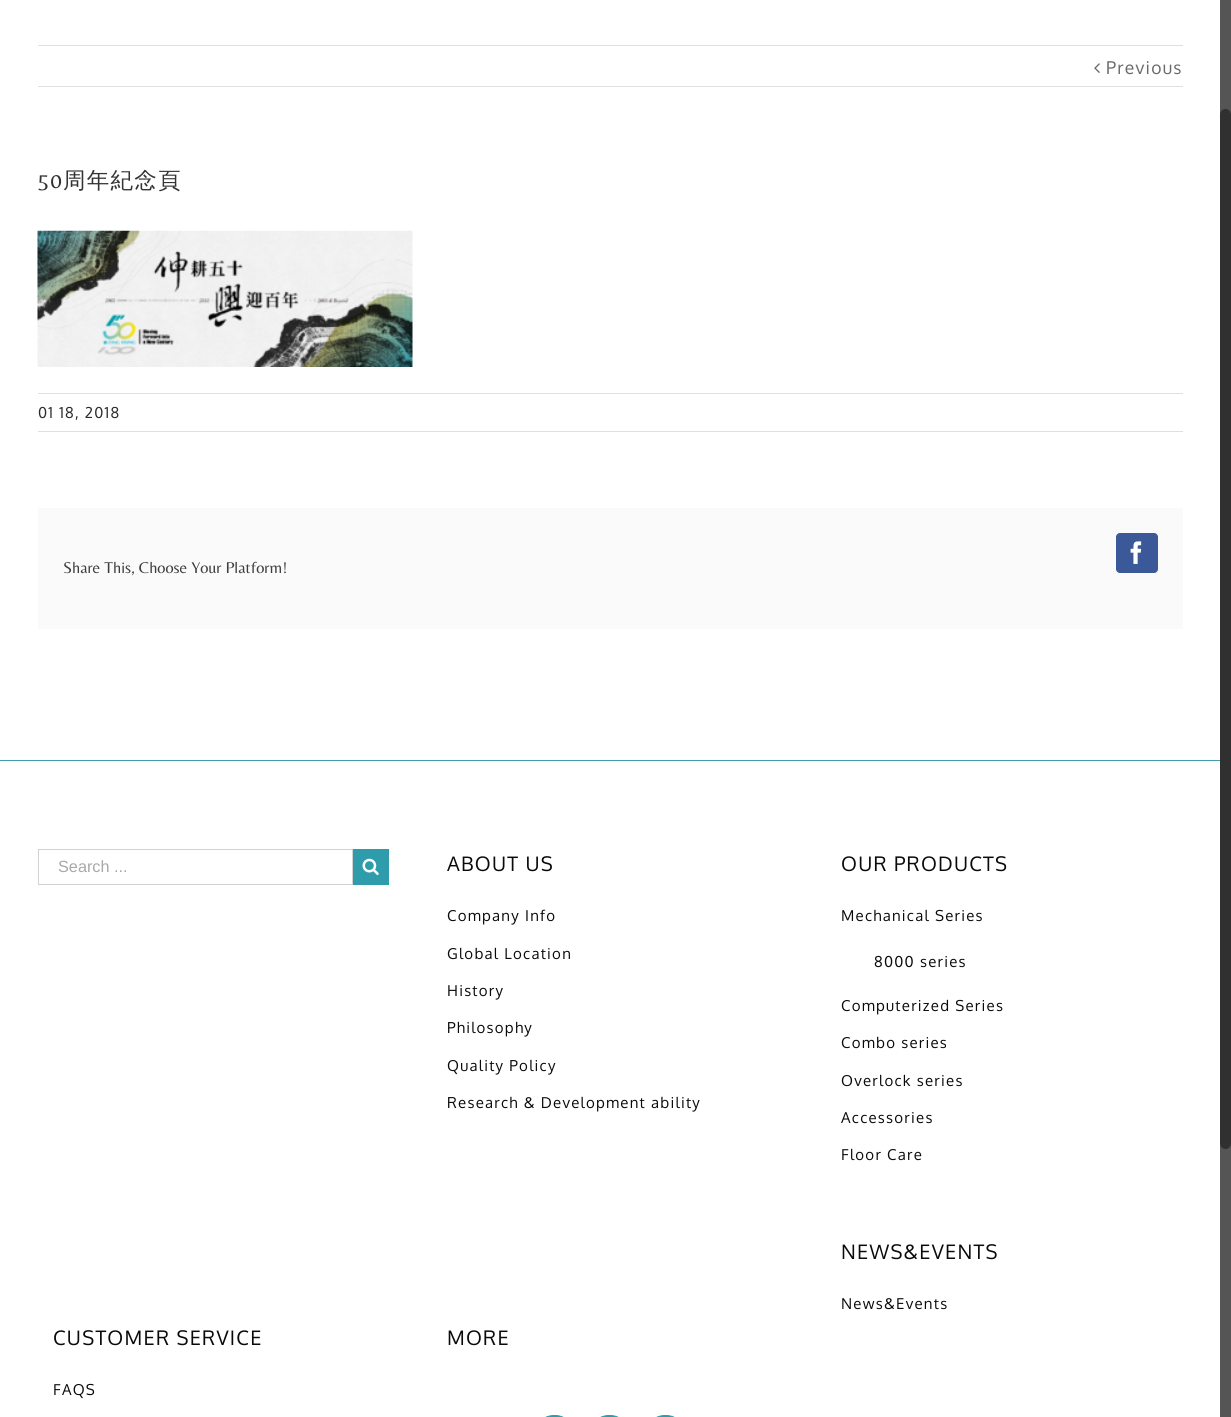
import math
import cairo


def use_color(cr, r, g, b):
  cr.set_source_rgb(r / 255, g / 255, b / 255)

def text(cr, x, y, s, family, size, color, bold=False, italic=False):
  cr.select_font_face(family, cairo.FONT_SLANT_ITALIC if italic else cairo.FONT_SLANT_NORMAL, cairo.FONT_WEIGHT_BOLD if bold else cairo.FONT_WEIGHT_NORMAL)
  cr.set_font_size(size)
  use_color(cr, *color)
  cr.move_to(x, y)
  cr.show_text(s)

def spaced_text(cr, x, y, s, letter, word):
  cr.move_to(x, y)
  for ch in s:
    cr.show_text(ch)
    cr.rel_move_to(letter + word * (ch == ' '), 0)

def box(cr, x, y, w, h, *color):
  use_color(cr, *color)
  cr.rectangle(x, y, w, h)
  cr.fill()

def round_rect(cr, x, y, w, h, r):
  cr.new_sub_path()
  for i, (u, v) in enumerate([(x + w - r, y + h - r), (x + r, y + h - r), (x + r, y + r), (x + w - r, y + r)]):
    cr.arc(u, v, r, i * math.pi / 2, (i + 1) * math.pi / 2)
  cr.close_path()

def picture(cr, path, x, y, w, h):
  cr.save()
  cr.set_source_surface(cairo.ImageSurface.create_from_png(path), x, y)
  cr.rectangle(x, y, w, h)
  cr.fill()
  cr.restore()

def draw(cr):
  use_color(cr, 255, 255, 255)
  cr.paint()
  box(cr, 38, 45, 1145, 1, 224, 222, 222)
  box(cr, 38, 86, 1145, 1, 224, 222, 222)
  picture(cr, "img_01.png", 1094, 63, 6, 10)
  picture(cr, "img_02.png", 37, 230, 376, 137)
  box(cr, 38, 393, 1145, 1, 224, 222, 222)
  box(cr, 38, 431, 1145, 1, 224, 222, 222)
  box(cr, 38, 508, 1145, 121, 250, 250, 250)
  use_color(cr, 59, 89, 152)
  round_rect(cr, 1116.5, 533.5, 41, 39, 3.5)
  cr.fill_preserve()
  cr.set_line_width(1)
  cr.stroke()
  picture(cr, "img_03.png", 1130, 541, 12, 23)
  box(cr, 0, 760, 1220, 1, 67, 156, 171)
  cr.rectangle(38.5, 849.5, 314, 35)
  use_color(cr, 210, 210, 210)
  cr.stroke()
  box(cr, 353, 849, 36, 36, 46, 156, 171)
  picture(cr, "img_04.png", 362, 858, 17, 17)
  round_rect(cr, 534.5, 1415.5, 40, 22, 19.5)
  cr.fill_preserve()
  cr.stroke()
  round_rect(cr, 589.5, 1415.5, 40, 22, 19.5)
  cr.fill_preserve()
  cr.stroke()
  round_rect(cr, 645.5, 1415.5, 40, 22, 19.5)
  cr.fill_preserve()
  cr.stroke()
  box(cr, 1220, 0, 11, 1417, 85, 85, 85)
  use_color(cr, 48, 48, 48)
  round_rect(cr, 1220, 109, 11, 1040, 5.5)
  cr.fill()
  cr.select_font_face("Oxygen")
  cr.set_font_size(17.5)
  use_color(cr, 105, 105, 105)
  spaced_text(cr, 1106, 74, "Previous", 1.25, 0)
  cr.select_font_face("Belleza")
  cr.set_font_size(22.5)
  use_color(cr, 51, 51, 51)
  spaced_text(cr, 38, 188, "50", 1.25, 0)
  cr.select_font_face("WenQuanYi Zen Hei Medium")
  spaced_text(cr, 63, 188, "周年紀念頁", 1.25, 0)
  cr.select_font_face("Oxygen")
  cr.set_font_size(15)
  use_color(cr, 43, 43, 43)
  spaced_text(cr, 38, 418, "01 18, 2018", 1.25, 0)
  text(cr, 63, 573, "Share This, Choose Your Platform!", "Belleza", 16.25, (61, 61, 61))
  text(cr, 58, 872, "Search ...", "Liberation Sans", 16.25, (170, 169, 169))
  cr.select_font_face("Oxygen")
  cr.set_font_size(20)
  use_color(cr, 10, 10, 10)
  spaced_text(cr, 447, 871, "ABOUT US", 1.25, 0)
  cr.set_font_size(15)
  spaced_text(cr, 447, 921, "Company Info", 1.25, 0)
  spaced_text(cr, 447, 959, "Global Location", 1.25, 0)
  spaced_text(cr, 447, 996, "History", 1.25, 0)
  spaced_text(cr, 447, 1033, "Philosophy", 1.25, 0)
  spaced_text(cr, 447, 1071, "Quality Policy", 1.25, 0)
  spaced_text(cr, 447, 1108, "Research & Development ability", 1.25, 0)
  cr.set_font_size(20)
  spaced_text(cr, 841, 871, "OUR PRODUCTS", 1.25, 0)
  cr.set_font_size(15)
  spaced_text(cr, 841, 921, "Mechanical Series", 1.25, 0)
  spaced_text(cr, 874, 967, "8000 series", 1.25, 0)
  spaced_text(cr, 841, 1011, "Computerized Series", 1.25, 0)
  spaced_text(cr, 841, 1048, "Combo series", 1.25, 0)
  spaced_text(cr, 841, 1086, "Overlock series", 1.25, 0)
  spaced_text(cr, 841, 1123, "Accessories", 1.25, 0)
  spaced_text(cr, 841, 1160, "Floor Care", 1.25, 0)
  cr.set_font_size(20)
  spaced_text(cr, 841, 1259, "NEWS&EVENTS", 1.25, 0)
  cr.set_font_size(15)
  spaced_text(cr, 841, 1309, "News&Events", 1.25, 0)
  cr.set_font_size(20)
  spaced_text(cr, 53, 1345, "CUSTOMER SERVICE", 1.25, 0)
  cr.set_font_size(15)
  spaced_text(cr, 53, 1395, "FAQS", 1.25, 0)
  cr.set_font_size(20)
  spaced_text(cr, 447, 1345, "MORE", 1.25, 0)


surface = cairo.ImageSurface(cairo.FORMAT_RGB24, 1231, 1417)
cr = cairo.Context(surface)
options = cairo.FontOptions()
options.set_hint_metrics(cairo.HINT_METRICS_OFF)
options.set_hint_style(cairo.HINT_STYLE_NONE)
cr.set_font_options(options)
cr.set_miter_limit(4)
draw(cr)
surface.write_to_png("out.png")
